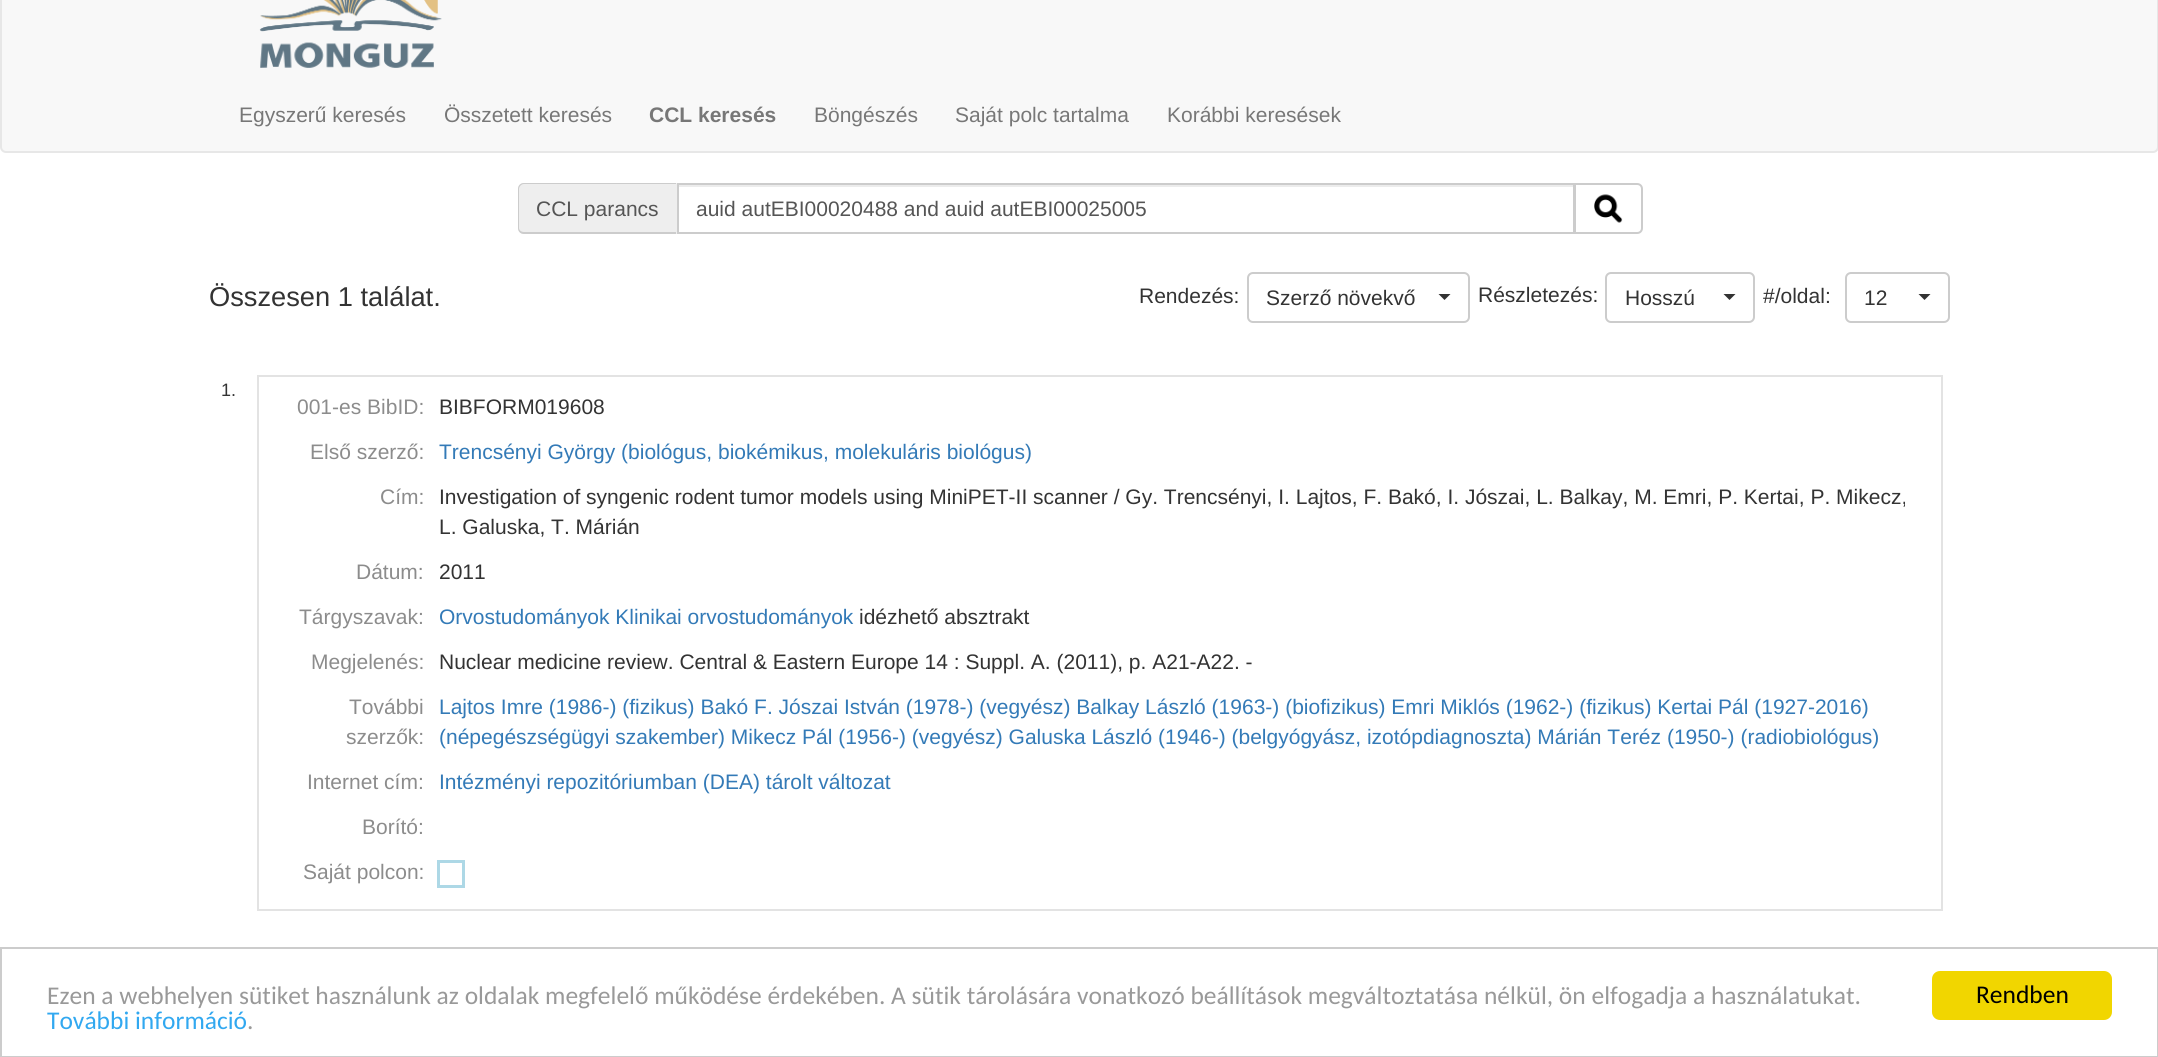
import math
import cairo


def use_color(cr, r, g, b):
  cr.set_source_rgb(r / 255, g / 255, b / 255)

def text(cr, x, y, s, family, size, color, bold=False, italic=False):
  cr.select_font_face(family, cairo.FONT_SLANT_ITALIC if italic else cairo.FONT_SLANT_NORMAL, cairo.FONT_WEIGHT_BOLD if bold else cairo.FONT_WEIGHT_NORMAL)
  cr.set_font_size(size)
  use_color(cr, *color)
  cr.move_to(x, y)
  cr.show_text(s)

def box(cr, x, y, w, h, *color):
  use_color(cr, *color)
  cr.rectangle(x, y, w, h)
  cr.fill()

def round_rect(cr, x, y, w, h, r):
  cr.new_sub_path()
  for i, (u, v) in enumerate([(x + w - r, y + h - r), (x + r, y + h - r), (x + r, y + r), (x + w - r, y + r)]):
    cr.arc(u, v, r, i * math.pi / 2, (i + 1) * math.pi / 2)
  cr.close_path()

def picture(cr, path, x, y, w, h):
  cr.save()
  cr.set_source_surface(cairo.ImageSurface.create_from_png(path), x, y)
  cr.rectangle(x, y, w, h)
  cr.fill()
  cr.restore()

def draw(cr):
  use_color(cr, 255, 255, 255)
  cr.paint()
  use_color(cr, 248, 248, 248)
  round_rect(cr, 1, -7, 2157, 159, 5)
  cr.fill_preserve()
  use_color(cr, 231, 231, 231)
  cr.stroke()
  picture(cr, "img_01.png", 259, 0, 183, 68)
  use_color(cr, 238, 238, 238)
  cr.new_path()
  cr.move_to(524, 183)
  cr.line_to(677, 183)
  cr.line_to(677, 234)
  cr.line_to(524, 234)
  cr.curve_to(520.5, 234, 518, 231.5, 518, 228)
  cr.line_to(518, 189)
  cr.curve_to(518, 185.5, 520.5, 183, 524, 183)
  cr.close_path()
  cr.fill()
  use_color(cr, 204, 204, 204)
  cr.set_fill_rule(cairo.FILL_RULE_EVEN_ODD)
  cr.new_path()
  cr.move_to(524, 183)
  cr.line_to(676, 183)
  cr.line_to(676, 234)
  cr.line_to(524, 234)
  cr.curve_to(520, 234, 518, 231, 518, 228)
  cr.line_to(518, 189)
  cr.curve_to(518, 186, 520, 183, 524, 183)
  cr.close_path()
  cr.move_to(524, 184)
  cr.line_to(676, 184)
  cr.line_to(676, 232)
  cr.line_to(524, 232)
  cr.curve_to(521, 232, 519, 230, 519, 228)
  cr.line_to(519, 189)
  cr.curve_to(519, 187, 521, 184, 524, 184)
  cr.close_path()
  cr.fill()
  box(cr, 678, 185, 896, 2, 236, 236, 236)
  cr.rectangle(678, 184, 896, 49)
  use_color(cr, 204, 204, 204)
  cr.stroke()
  use_color(cr, 255, 255, 255)
  cr.new_path()
  cr.move_to(1575, 184)
  cr.line_to(1637, 184)
  cr.curve_to(1640, 184, 1642, 186, 1642, 189)
  cr.line_to(1642, 228)
  cr.curve_to(1642, 231, 1640, 233, 1637, 233)
  cr.line_to(1575, 233)
  cr.close_path()
  cr.fill_preserve()
  use_color(cr, 204, 204, 204)
  cr.stroke()
  picture(cr, "img_02.png", 1594, 194, 29, 29)
  round_rect(cr, 1248, 273, 221, 49, 5)
  cr.stroke()
  use_color(cr, 51, 51, 51)
  cr.set_fill_rule(cairo.FILL_RULE_WINDING)
  cr.new_path()
  cr.move_to(1438.5, 294)
  cr.line_to(1450.5, 294)
  cr.line_to(1444.5, 300)
  cr.close_path()
  cr.fill()
  round_rect(cr, 1606, 273, 148, 49, 5)
  use_color(cr, 204, 204, 204)
  cr.stroke()
  use_color(cr, 51, 51, 51)
  cr.new_path()
  cr.move_to(1723.5, 294)
  cr.line_to(1735.5, 294)
  cr.line_to(1729.5, 300)
  cr.close_path()
  cr.fill()
  round_rect(cr, 1846, 273, 103, 49, 5)
  use_color(cr, 204, 204, 204)
  cr.stroke()
  use_color(cr, 51, 51, 51)
  cr.new_path()
  cr.move_to(1918.5, 294)
  cr.line_to(1930.5, 294)
  cr.line_to(1924.5, 300)
  cr.close_path()
  cr.fill()
  box(cr, 257, 375, 1686, 2, 227, 227, 227)
  box(cr, 1941, 375, 2, 536, 227, 227, 227)
  box(cr, 257, 909, 1686, 2, 227, 227, 227)
  box(cr, 257, 375, 2, 536, 227, 227, 227)
  cr.rectangle(438.5, 861.5, 25, 25)
  use_color(cr, 173, 216, 230)
  cr.set_line_width(3)
  cr.stroke()
  cr.rectangle(1, 948, 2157, 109)
  use_color(cr, 204, 204, 204)
  cr.set_line_width(2)
  cr.stroke()
  use_color(cr, 241, 214, 0)
  round_rect(cr, 1932, 971, 180, 49, 8)
  cr.fill()
  text(cr, 239, 122, "Egyszerű keresés", "Liberation Sans", 21, (119, 119, 119))
  text(cr, 444, 122, "Összetett keresés", "Liberation Sans", 21, (119, 119, 119))
  text(cr, 649, 122, "CCL keresés", "Liberation Sans", 21, (119, 119, 119), bold=True)
  text(cr, 814, 122, "Böngészés", "Liberation Sans", 21, (119, 119, 119))
  text(cr, 955, 122, "Saját polc tartalma", "Liberation Sans", 21, (119, 119, 119))
  text(cr, 1167, 122, "Korábbi keresések", "Liberation Sans", 21, (119, 119, 119))
  text(cr, 536, 216, "CCL parancs", "Liberation Sans", 21, (85, 85, 85))
  text(cr, 696, 216, "auid autEBI00020488 and auid autEBI00025005", "Liberation Sans", 21, (85, 85, 85))
  text(cr, 209, 306, "Összesen 1 találat.", "Liberation Sans", 27.25, (51, 51, 51))
  text(cr, 1139, 303, "Rendezés:", "Liberation Sans", 21, (51, 51, 51))
  text(cr, 1266, 305, "Szerző növekvő", "Liberation Sans", 21, (51, 51, 51))
  text(cr, 1478, 302, "Részletezés:", "Liberation Sans", 21, (51, 51, 51))
  text(cr, 1625, 305, "Hosszú", "Liberation Sans", 21, (51, 51, 51))
  text(cr, 1763, 303, "#/oldal:", "Liberation Sans", 21, (51, 51, 51))
  text(cr, 1864, 305, "12", "Liberation Sans", 21, (51, 51, 51))
  text(cr, 221, 396, "1.", "Liberation Sans", 18, (51, 51, 51))
  text(cr, 297, 414, "001-es BibID:", "Liberation Sans", 21, (140, 140, 140))
  text(cr, 439, 414, "BIBFORM019608", "Liberation Sans", 21, (51, 51, 51))
  text(cr, 310, 459, "Első szerző:", "Liberation Sans", 21, (140, 140, 140))
  text(cr, 439, 459, "Trencsényi György (biológus, biokémikus, molekuláris biológus)", "Liberation Sans", 21, (51, 122, 183))
  text(cr, 380, 504, "Cím:", "Liberation Sans", 21, (140, 140, 140))
  text(cr, 439, 504, "Investigation of syngenic rodent tumor models using MiniPET-II scanner / Gy. Trencsényi, I. Lajtos, F. Bakó, I. Jószai, L. Balkay, M. Emri, P. Kertai, P. Mikecz,", "Liberation Sans", 21, (51, 51, 51))
  text(cr, 439, 534, "L. Galuska, T. Márián", "Liberation Sans", 21, (51, 51, 51))
  text(cr, 356, 579, "Dátum:", "Liberation Sans", 21, (140, 140, 140))
  text(cr, 439, 579, "2011", "Liberation Sans", 21, (51, 51, 51))
  text(cr, 299, 624, "Tárgyszavak:", "Liberation Sans", 21, (140, 140, 140))
  text(cr, 439, 624, "Orvostudományok Klinikai orvostudományok", "Liberation Sans", 21, (51, 122, 183))
  text(cr, 859, 624, "idézhető absztrakt", "Liberation Sans", 21, (51, 51, 51))
  text(cr, 311, 669, "Megjelenés:", "Liberation Sans", 21, (140, 140, 140))
  text(cr, 439, 669, "Nuclear medicine review. Central & Eastern Europe 14 : Suppl. A. (2011), p. A21-A22. -", "Liberation Sans", 21, (51, 51, 51))
  text(cr, 349, 714, "További", "Liberation Sans", 21, (140, 140, 140))
  text(cr, 346, 744, "szerzők:", "Liberation Sans", 21, (140, 140, 140))
  text(cr, 439, 714, "Lajtos Imre (1986-) (fizikus) Bakó F. Jószai István (1978-) (vegyész) Balkay László (1963-) (biofizikus) Emri Miklós (1962-) (fizikus) Kertai Pál (1927-2016)", "Liberation Sans", 21, (51, 122, 183))
  text(cr, 439, 744, "(népegészségügyi szakember) Mikecz Pál (1956-) (vegyész) Galuska László (1946-) (belgyógyász, izotópdiagnoszta) Márián Teréz (1950-) (radiobiológus)", "Liberation Sans", 21, (51, 122, 183))
  text(cr, 307, 789, "Internet cím:", "Liberation Sans", 21, (140, 140, 140))
  text(cr, 439, 789, "Intézményi repozitóriumban (DEA) tárolt változat", "Liberation Sans", 21, (51, 122, 183))
  text(cr, 362, 834, "Borító:", "Liberation Sans", 21, (140, 140, 140))
  text(cr, 303, 879, "Saját polcon:", "Liberation Sans", 21, (140, 140, 140))
  text(cr, 47, 1004, "Ezen a webhelyen sütiket használunk az oldalak megfelelő működése érdekében. A sütik tárolására vonatkozó beállítások megváltoztatása nélkül, ön elfogadja a használatukat.", "Carlito", 25.5, (153, 153, 153))
  text(cr, 47, 1029, "További információ", "Carlito", 25.5, (49, 168, 240))
  text(cr, 247, 1029, ".", "Carlito", 25.5, (153, 153, 153))
  text(cr, 1976, 1003, "Rendben", "Carlito", 25.5, (0, 0, 0))


surface = cairo.ImageSurface(cairo.FORMAT_RGB24, 2158, 1057)
cr = cairo.Context(surface)
options = cairo.FontOptions()
options.set_hint_metrics(cairo.HINT_METRICS_OFF)
options.set_hint_style(cairo.HINT_STYLE_NONE)
cr.set_font_options(options)
cr.set_miter_limit(4)
draw(cr)
surface.write_to_png("out.png")
